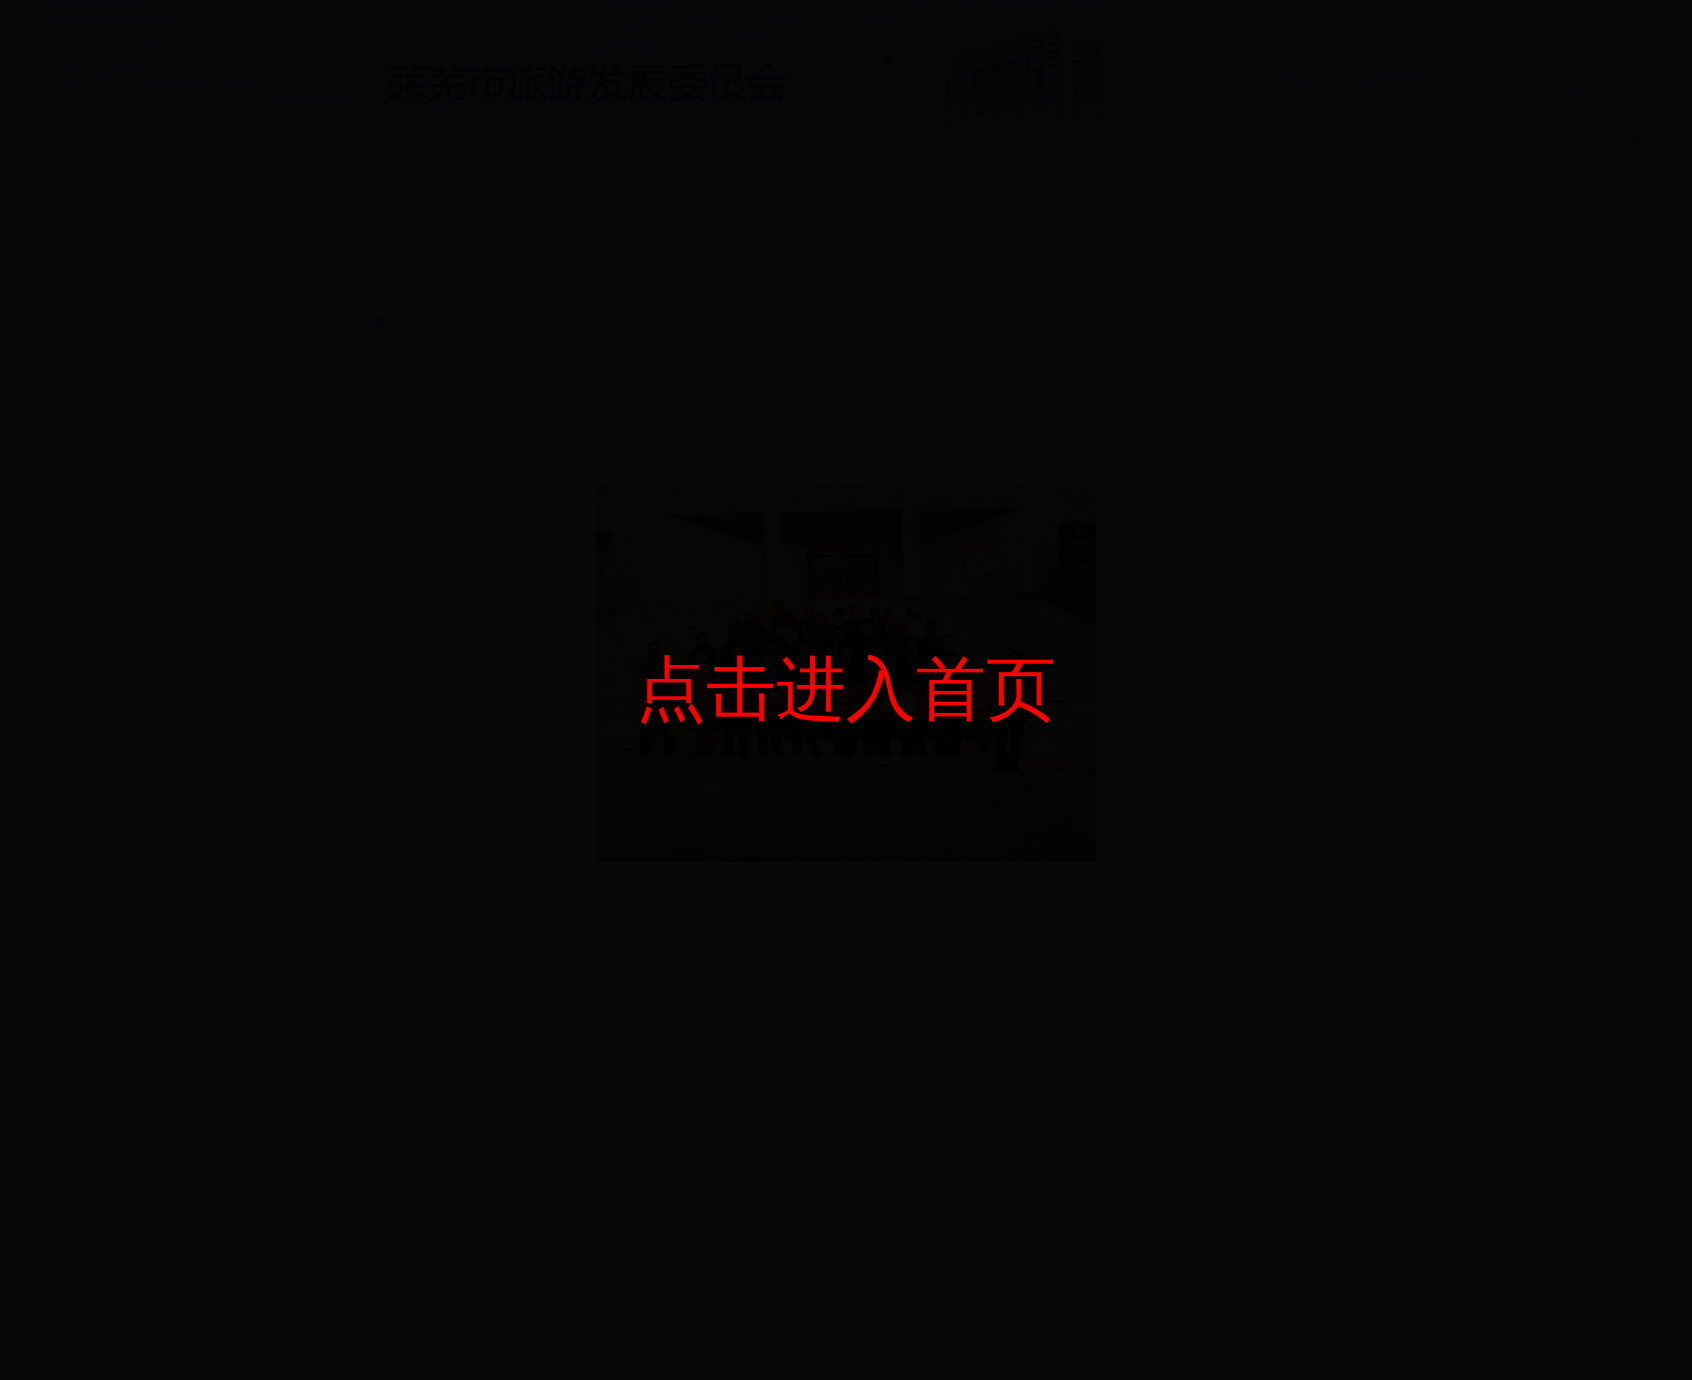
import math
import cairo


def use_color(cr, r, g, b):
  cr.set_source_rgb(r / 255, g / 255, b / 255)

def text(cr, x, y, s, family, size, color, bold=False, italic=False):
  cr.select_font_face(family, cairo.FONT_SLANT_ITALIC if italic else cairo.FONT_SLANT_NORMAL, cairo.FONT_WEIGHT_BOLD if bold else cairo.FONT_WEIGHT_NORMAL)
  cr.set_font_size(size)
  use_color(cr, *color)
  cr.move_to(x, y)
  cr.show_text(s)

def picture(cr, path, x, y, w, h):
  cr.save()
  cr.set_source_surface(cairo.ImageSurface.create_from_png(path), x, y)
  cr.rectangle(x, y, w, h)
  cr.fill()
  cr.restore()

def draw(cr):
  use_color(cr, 8, 8, 8)
  cr.paint()
  picture(cr, "img_01.png", 46, 0, 1600, 190)
  picture(cr, "img_02.png", 371, 314, 15, 11)
  picture(cr, "img_03.png", 596, 487, 500, 375)
  text(cr, 636, 713, "点击进入首页", "WenQuanYi Zen Hei Medium", 70, (255, 0, 0))


surface = cairo.ImageSurface(cairo.FORMAT_RGB24, 1692, 1380)
cr = cairo.Context(surface)
options = cairo.FontOptions()
options.set_hint_metrics(cairo.HINT_METRICS_OFF)
options.set_hint_style(cairo.HINT_STYLE_NONE)
cr.set_font_options(options)
cr.set_miter_limit(4)
draw(cr)
surface.write_to_png("out.png")
